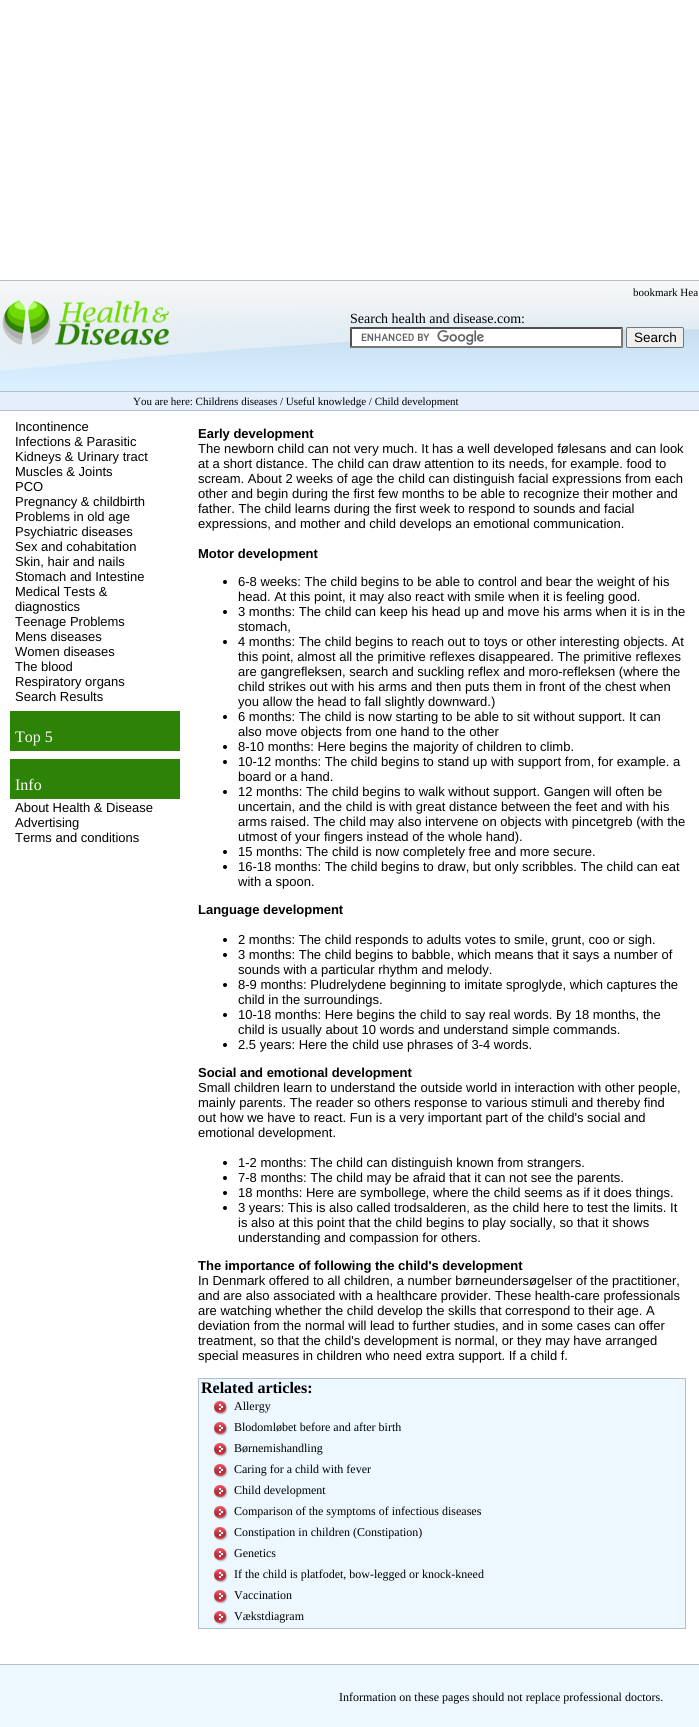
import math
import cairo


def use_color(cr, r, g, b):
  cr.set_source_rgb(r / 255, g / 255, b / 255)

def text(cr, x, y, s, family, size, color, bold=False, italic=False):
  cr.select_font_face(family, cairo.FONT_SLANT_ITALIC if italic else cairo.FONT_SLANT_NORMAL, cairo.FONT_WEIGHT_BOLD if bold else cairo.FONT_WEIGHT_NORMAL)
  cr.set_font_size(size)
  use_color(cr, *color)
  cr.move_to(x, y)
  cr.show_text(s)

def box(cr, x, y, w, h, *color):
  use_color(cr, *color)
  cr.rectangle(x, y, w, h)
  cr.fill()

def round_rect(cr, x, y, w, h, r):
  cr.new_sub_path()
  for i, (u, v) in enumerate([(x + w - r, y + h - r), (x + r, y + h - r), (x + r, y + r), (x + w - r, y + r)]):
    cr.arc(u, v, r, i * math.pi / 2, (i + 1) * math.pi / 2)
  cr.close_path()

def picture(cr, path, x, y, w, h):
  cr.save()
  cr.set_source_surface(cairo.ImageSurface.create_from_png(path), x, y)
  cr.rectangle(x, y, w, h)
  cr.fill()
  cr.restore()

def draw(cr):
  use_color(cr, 255, 255, 255)
  cr.paint()
  picture(cr, "img_01.png", 0, 281, 699, 110)
  box(cr, 0, 280, 699, 1, 176, 192, 204)
  box(cr, 0, 391, 699, 1, 176, 192, 204)
  picture(cr, "img_02.png", 2, 300, 167, 46)
  box(cr, 350, 327, 273, 21, 255, 255, 255)
  picture(cr, "img_03.png", 361, 330, 123, 15)
  use_color(cr, 79, 79, 79)
  cr.new_path()
  cr.move_to(350, 327)
  cr.line_to(623, 327)
  cr.line_to(621, 329)
  cr.line_to(352, 329)
  cr.close_path()
  cr.fill()
  use_color(cr, 118, 118, 118)
  cr.new_path()
  cr.move_to(623, 327)
  cr.line_to(623, 348)
  cr.line_to(621, 346)
  cr.line_to(621, 329)
  cr.close_path()
  cr.fill()
  cr.new_path()
  cr.move_to(623, 348)
  cr.line_to(350, 348)
  cr.line_to(352, 346)
  cr.line_to(621, 346)
  cr.close_path()
  cr.fill()
  use_color(cr, 79, 79, 79)
  cr.new_path()
  cr.move_to(350, 348)
  cr.line_to(350, 327)
  cr.line_to(352, 329)
  cr.line_to(352, 346)
  cr.close_path()
  cr.fill()
  use_color(cr, 239, 239, 239)
  round_rect(cr, 626.5, 327.5, 57, 20, 1.5)
  cr.fill_preserve()
  use_color(cr, 118, 118, 118)
  cr.set_line_width(1)
  cr.stroke()
  box(cr, 0, 392, 699, 18, 229, 239, 252)
  box(cr, 0, 410, 699, 1, 176, 192, 204)
  box(cr, 10, 711, 170, 40, 44, 131, 5)
  box(cr, 10, 759, 170, 40, 44, 131, 5)
  use_color(cr, 0, 0, 0)
  cr.arc(225, 582, 2, 0, 2 * math.pi)
  cr.fill()
  cr.arc(225, 612, 2, 0, 2 * math.pi)
  cr.fill()
  cr.arc(225, 642, 2, 0, 2 * math.pi)
  cr.fill()
  cr.arc(225, 717, 2, 0, 2 * math.pi)
  cr.fill()
  cr.arc(225, 747, 2, 0, 2 * math.pi)
  cr.fill()
  cr.arc(225, 762, 2, 0, 2 * math.pi)
  cr.fill()
  cr.arc(225, 792, 2, 0, 2 * math.pi)
  cr.fill()
  cr.arc(225, 852, 2, 0, 2 * math.pi)
  cr.fill()
  cr.arc(225, 867, 2, 0, 2 * math.pi)
  cr.fill()
  cr.arc(225, 940, 2, 0, 2 * math.pi)
  cr.fill()
  cr.arc(225, 955, 2, 0, 2 * math.pi)
  cr.fill()
  cr.arc(225, 985, 2, 0, 2 * math.pi)
  cr.fill()
  cr.arc(225, 1015, 2, 0, 2 * math.pi)
  cr.fill()
  cr.arc(225, 1045, 2, 0, 2 * math.pi)
  cr.fill()
  cr.arc(225, 1163, 2, 0, 2 * math.pi)
  cr.fill()
  cr.arc(225, 1178, 2, 0, 2 * math.pi)
  cr.fill()
  cr.arc(225, 1193, 2, 0, 2 * math.pi)
  cr.fill()
  cr.arc(225, 1208, 2, 0, 2 * math.pi)
  cr.fill()
  box(cr, 199, 1379, 486, 249, 236, 247, 255)
  box(cr, 198, 1378, 488, 1, 176, 192, 204)
  box(cr, 685, 1378, 1, 251, 176, 192, 204)
  box(cr, 198, 1378, 1, 19, 176, 192, 204)
  box(cr, 198, 1628, 488, 1, 176, 192, 204)
  box(cr, 198, 1397, 1, 232, 176, 192, 204)
  picture(cr, "img_04.png", 214, 1401, 14, 14)
  picture(cr, "img_04.png", 214, 1422, 14, 14)
  picture(cr, "img_04.png", 214, 1443, 14, 14)
  picture(cr, "img_04.png", 214, 1464, 14, 14)
  picture(cr, "img_04.png", 214, 1485, 14, 14)
  picture(cr, "img_04.png", 214, 1506, 14, 14)
  picture(cr, "img_04.png", 214, 1527, 14, 14)
  picture(cr, "img_04.png", 214, 1548, 14, 14)
  picture(cr, "img_04.png", 214, 1569, 14, 14)
  picture(cr, "img_04.png", 214, 1590, 14, 14)
  picture(cr, "img_04.png", 214, 1611, 14, 14)
  box(cr, 0, 1665, 699, 62, 236, 247, 255)
  box(cr, 0, 1664, 699, 1, 176, 192, 204)
  text(cr, 633, 296, "bookmark Hea", "Liberation Serif", 11, (0, 0, 0))
  text(cr, 350, 323, "Search health and disease.com:", "Liberation Serif", 14, (0, 0, 0))
  text(cr, 634, 342, "Search", "Liberation Sans", 13.5, (0, 0, 0))
  text(cr, 133, 405, "You are here: Childrens diseases / Useful knowledge / Child development", "Liberation Serif", 11, (0, 0, 0))
  text(cr, 15, 431, "Incontinence", "Liberation Sans", 13, (0, 0, 0))
  text(cr, 15, 446, "Infections & Parasitic", "Liberation Sans", 13, (0, 0, 0))
  text(cr, 15, 461, "Kidneys & Urinary tract", "Liberation Sans", 13, (0, 0, 0))
  text(cr, 15, 476, "Muscles & Joints", "Liberation Sans", 13, (0, 0, 0))
  text(cr, 15, 491, "PCO", "Liberation Sans", 13, (0, 0, 0))
  text(cr, 15, 506, "Pregnancy & childbirth", "Liberation Sans", 13, (0, 0, 0))
  text(cr, 15, 521, "Problems in old age", "Liberation Sans", 13, (0, 0, 0))
  text(cr, 15, 536, "Psychiatric diseases", "Liberation Sans", 13, (0, 0, 0))
  text(cr, 15, 551, "Sex and cohabitation", "Liberation Sans", 13, (0, 0, 0))
  text(cr, 15, 566, "Skin, hair and nails", "Liberation Sans", 13, (0, 0, 0))
  text(cr, 15, 581, "Stomach and Intestine", "Liberation Sans", 13, (0, 0, 0))
  text(cr, 15, 596, "Medical Tests &", "Liberation Sans", 13, (0, 0, 0))
  text(cr, 15, 611, "diagnostics", "Liberation Sans", 13, (0, 0, 0))
  text(cr, 15, 626, "Teenage Problems", "Liberation Sans", 13, (0, 0, 0))
  text(cr, 15, 641, "Mens diseases", "Liberation Sans", 13, (0, 0, 0))
  text(cr, 15, 656, "Women diseases", "Liberation Sans", 13, (0, 0, 0))
  text(cr, 15, 671, "The blood", "Liberation Sans", 13, (0, 0, 0))
  text(cr, 15, 686, "Respiratory organs", "Liberation Sans", 13, (0, 0, 0))
  text(cr, 15, 701, "Search Results", "Liberation Sans", 13, (0, 0, 0))
  text(cr, 15, 742, "Top 5", "Liberation Serif", 16, (255, 255, 255))
  text(cr, 15, 790, "Info", "Liberation Serif", 16, (255, 255, 255))
  text(cr, 15, 812, "About Health & Disease", "Liberation Sans", 13, (0, 0, 0))
  text(cr, 15, 827, "Advertising", "Liberation Sans", 13, (0, 0, 0))
  text(cr, 15, 842, "Terms and conditions", "Liberation Sans", 13, (0, 0, 0))
  text(cr, 198, 438, "Early development", "Liberation Sans", 13, (0, 0, 0), bold=True)
  text(cr, 198, 453, "The newborn child can not very much. It has a well developed følesans and can look", "Liberation Sans", 13, (0, 0, 0))
  text(cr, 198, 468, "at a short distance. The child can draw attention to its needs, for example. food to", "Liberation Sans", 13, (0, 0, 0))
  text(cr, 198, 483, "scream. About 2 weeks of age the child can distinguish facial expressions from each", "Liberation Sans", 13, (0, 0, 0))
  text(cr, 198, 498, "other and begin during the first few months to be able to recognize their mother and", "Liberation Sans", 13, (0, 0, 0))
  text(cr, 198, 513, "father. The child learns during the first week to respond to sounds and facial", "Liberation Sans", 13, (0, 0, 0))
  text(cr, 198, 528, "expressions, and mother and child develops an emotional communication.", "Liberation Sans", 13, (0, 0, 0))
  text(cr, 198, 558, "Motor development", "Liberation Sans", 13, (0, 0, 0), bold=True)
  text(cr, 238, 586, "6-8 weeks: The child begins to be able to control and bear the weight of his", "Liberation Sans", 13, (0, 0, 0))
  text(cr, 238, 601, "head. At this point, it may also react with smile when it is feeling good.", "Liberation Sans", 13, (0, 0, 0))
  text(cr, 238, 616, "3 months: The child can keep his head up and move his arms when it is in the", "Liberation Sans", 13, (0, 0, 0))
  text(cr, 238, 631, "stomach,", "Liberation Sans", 13, (0, 0, 0))
  text(cr, 238, 646, "4 months: The child begins to reach out to toys or other interesting objects. At", "Liberation Sans", 13, (0, 0, 0))
  text(cr, 238, 661, "this point, almost all the primitive reflexes disappeared. The primitive reflexes", "Liberation Sans", 13, (0, 0, 0))
  text(cr, 238, 676, "are gangrefleksen, search and suckling reflex and moro-refleksen (where the", "Liberation Sans", 13, (0, 0, 0))
  text(cr, 238, 691, "child strikes out with his arms and then puts them in front of the chest when", "Liberation Sans", 13, (0, 0, 0))
  text(cr, 238, 706, "you allow the head to fall slightly downward.)", "Liberation Sans", 13, (0, 0, 0))
  text(cr, 238, 721, "6 months: The child is now starting to be able to sit without support. It can", "Liberation Sans", 13, (0, 0, 0))
  text(cr, 238, 736, "also move objects from one hand to the other", "Liberation Sans", 13, (0, 0, 0))
  text(cr, 238, 751, "8-10 months: Here begins the majority of children to climb.", "Liberation Sans", 13, (0, 0, 0))
  text(cr, 238, 766, "10-12 months: The child begins to stand up with support from, for example. a", "Liberation Sans", 13, (0, 0, 0))
  text(cr, 238, 781, "board or a hand.", "Liberation Sans", 13, (0, 0, 0))
  text(cr, 238, 796, "12 months: The child begins to walk without support. Gangen will often be", "Liberation Sans", 13, (0, 0, 0))
  text(cr, 238, 811, "uncertain, and the child is with great distance between the feet and with his", "Liberation Sans", 13, (0, 0, 0))
  text(cr, 238, 826, "arms raised. The child may also intervene on objects with pincetgreb (with the", "Liberation Sans", 13, (0, 0, 0))
  text(cr, 238, 841, "utmost of your fingers instead of the whole hand).", "Liberation Sans", 13, (0, 0, 0))
  text(cr, 238, 856, "15 months: The child is now completely free and more secure.", "Liberation Sans", 13, (0, 0, 0))
  text(cr, 238, 871, "16-18 months: The child begins to draw, but only scribbles. The child can eat", "Liberation Sans", 13, (0, 0, 0))
  text(cr, 238, 886, "with a spoon.", "Liberation Sans", 13, (0, 0, 0))
  text(cr, 198, 914, "Language development", "Liberation Sans", 13, (0, 0, 0), bold=True)
  text(cr, 238, 944, "2 months: The child responds to adults votes to smile, grunt, coo or sigh.", "Liberation Sans", 13, (0, 0, 0))
  text(cr, 238, 959, "3 months: The child begins to babble, which means that it says a number of", "Liberation Sans", 13, (0, 0, 0))
  text(cr, 238, 974, "sounds with a particular rhythm and melody.", "Liberation Sans", 13, (0, 0, 0))
  text(cr, 238, 989, "8-9 months: Pludrelydene beginning to imitate sproglyde, which captures the", "Liberation Sans", 13, (0, 0, 0))
  text(cr, 238, 1004, "child in the surroundings.", "Liberation Sans", 13, (0, 0, 0))
  text(cr, 238, 1019, "10-18 months: Here begins the child to say real words. By 18 months, the", "Liberation Sans", 13, (0, 0, 0))
  text(cr, 238, 1034, "child is usually about 10 words and understand simple commands.", "Liberation Sans", 13, (0, 0, 0))
  text(cr, 238, 1049, "2.5 years: Here the child use phrases of 3-4 words.", "Liberation Sans", 13, (0, 0, 0))
  text(cr, 198, 1077, "Social and emotional development", "Liberation Sans", 13, (0, 0, 0), bold=True)
  text(cr, 198, 1092, "Small children learn to understand the outside world in interaction with other people,", "Liberation Sans", 13, (0, 0, 0))
  text(cr, 198, 1107, "mainly parents. The reader so others response to various stimuli and thereby find", "Liberation Sans", 13, (0, 0, 0))
  text(cr, 198, 1122, "out how we have to react. Fun is a very important part of the child's social and", "Liberation Sans", 13, (0, 0, 0))
  text(cr, 198, 1137, "emotional development.", "Liberation Sans", 13, (0, 0, 0))
  text(cr, 238, 1167, "1-2 months: The child can distinguish known from strangers.", "Liberation Sans", 13, (0, 0, 0))
  text(cr, 238, 1182, "7-8 months: The child may be afraid that it can not see the parents.", "Liberation Sans", 13, (0, 0, 0))
  text(cr, 238, 1197, "18 months: Here are symbollege, where the child seems as if it does things.", "Liberation Sans", 13, (0, 0, 0))
  text(cr, 238, 1212, "3 years: This is also called trodsalderen, as the child here to test the limits. It", "Liberation Sans", 13, (0, 0, 0))
  text(cr, 238, 1227, "is also at this point that the child begins to play socially, so that it shows", "Liberation Sans", 13, (0, 0, 0))
  text(cr, 238, 1242, "understanding and compassion for others.", "Liberation Sans", 13, (0, 0, 0))
  text(cr, 198, 1270, "The importance of following the child's development", "Liberation Sans", 13, (0, 0, 0), bold=True)
  text(cr, 198, 1285, "In Denmark offered to all children, a number børneundersøgelser of the practitioner,", "Liberation Sans", 13, (0, 0, 0))
  text(cr, 198, 1300, "and are also associated with a healthcare provider. These health-care professionals", "Liberation Sans", 13, (0, 0, 0))
  text(cr, 198, 1315, "are watching whether the child develop the skills that correspond to their age. A", "Liberation Sans", 13, (0, 0, 0))
  text(cr, 198, 1330, "deviation from the normal will lead to further studies, and in some cases can offer", "Liberation Sans", 13, (0, 0, 0))
  text(cr, 198, 1345, "treatment, so that the child's development is normal, or they may have arranged", "Liberation Sans", 13, (0, 0, 0))
  text(cr, 198, 1360, "special measures in children who need extra support. If a child f.", "Liberation Sans", 13, (0, 0, 0))
  text(cr, 201, 1393, "Related articles:", "Liberation Serif", 16, (0, 0, 0), bold=True)
  text(cr, 234, 1410, "Allergy", "Liberation Serif", 12, (0, 0, 0))
  text(cr, 234, 1431, "Blodomløbet before and after birth", "Liberation Serif", 12, (0, 0, 0))
  text(cr, 234, 1452, "Børnemishandling", "Liberation Serif", 12, (0, 0, 0))
  text(cr, 234, 1473, "Caring for a child with fever", "Liberation Serif", 12, (0, 0, 0))
  text(cr, 234, 1494, "Child development", "Liberation Serif", 12, (0, 0, 0))
  text(cr, 234, 1515, "Comparison of the symptoms of infectious diseases", "Liberation Serif", 12, (0, 0, 0))
  text(cr, 234, 1536, "Constipation in children (Constipation)", "Liberation Serif", 12, (0, 0, 0))
  text(cr, 234, 1557, "Genetics", "Liberation Serif", 12, (0, 0, 0))
  text(cr, 234, 1578, "If the child is platfodet, bow-legged or knock-kneed", "Liberation Serif", 12, (0, 0, 0))
  text(cr, 234, 1599, "Vaccination", "Liberation Serif", 12, (0, 0, 0))
  text(cr, 234, 1620, "Vækstdiagram", "Liberation Serif", 12, (0, 0, 0))
  text(cr, 339, 1701, "Information on these pages should not replace professional doctors.", "Liberation Serif", 12, (0, 0, 0))


surface = cairo.ImageSurface(cairo.FORMAT_RGB24, 699, 1727)
cr = cairo.Context(surface)
options = cairo.FontOptions()
options.set_hint_metrics(cairo.HINT_METRICS_OFF)
options.set_hint_style(cairo.HINT_STYLE_NONE)
cr.set_font_options(options)
cr.set_miter_limit(4)
draw(cr)
surface.write_to_png("out.png")
